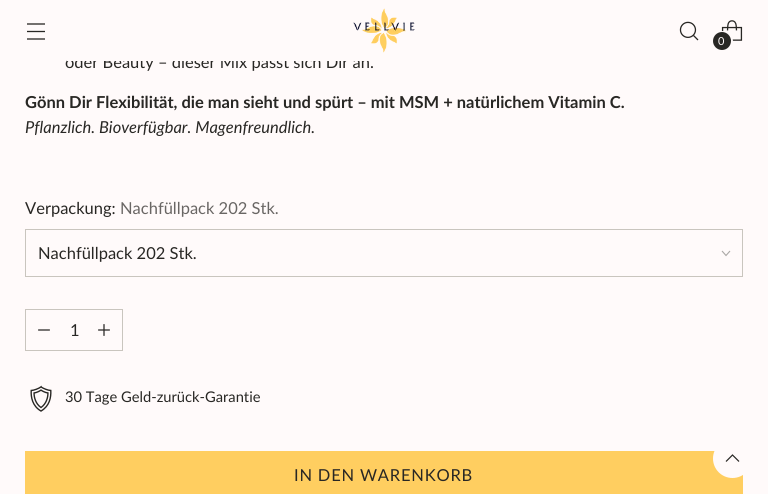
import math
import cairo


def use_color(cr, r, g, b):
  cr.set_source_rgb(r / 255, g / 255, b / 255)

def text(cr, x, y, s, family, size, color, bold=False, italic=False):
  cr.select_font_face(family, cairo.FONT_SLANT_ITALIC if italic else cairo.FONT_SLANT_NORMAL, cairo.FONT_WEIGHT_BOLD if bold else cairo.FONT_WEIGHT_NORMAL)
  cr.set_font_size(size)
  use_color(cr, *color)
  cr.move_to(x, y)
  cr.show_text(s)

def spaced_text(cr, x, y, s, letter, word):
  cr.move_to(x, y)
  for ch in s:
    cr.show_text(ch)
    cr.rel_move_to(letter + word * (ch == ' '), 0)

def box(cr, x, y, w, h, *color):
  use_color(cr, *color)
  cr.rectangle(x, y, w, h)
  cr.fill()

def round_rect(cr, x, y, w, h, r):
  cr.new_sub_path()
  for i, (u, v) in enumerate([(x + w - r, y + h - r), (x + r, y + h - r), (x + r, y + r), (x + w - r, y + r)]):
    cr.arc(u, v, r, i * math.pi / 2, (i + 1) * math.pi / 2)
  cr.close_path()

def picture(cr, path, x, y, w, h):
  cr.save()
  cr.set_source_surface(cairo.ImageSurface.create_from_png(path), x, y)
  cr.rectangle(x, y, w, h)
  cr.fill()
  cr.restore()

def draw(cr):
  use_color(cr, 255, 250, 250)
  cr.paint()
  cr.new_path()
  cr.move_to(27, 31.5)
  cr.line_to(45, 31.5)
  cr.move_to(27, 24)
  cr.line_to(45, 24)
  cr.move_to(27, 39)
  cr.line_to(45, 39)
  use_color(cr, 40, 39, 36)
  cr.set_line_width(1.3)
  cr.stroke()
  picture(cr, "img_01.png", 353, 8, 62, 45)
  picture(cr, "img_02.png", 679, 21, 20, 20)
  picture(cr, "img_03.png", 721, 20, 22, 21)
  cr.arc(722.5, 41.5, 9.5, 0, 2 * math.pi)
  use_color(cr, 255, 250, 250)
  cr.set_line_width(2)
  cr.stroke()
  use_color(cr, 40, 39, 36)
  cr.arc(722, 41, 9, 0, 2 * math.pi)
  cr.fill()
  cr.rectangle(25.5, 229.5, 717, 47)
  use_color(cr, 201, 197, 190)
  cr.set_line_width(1)
  cr.stroke()
  cr.new_path()
  cr.move_to(722, 251)
  cr.line_to(726, 255.5)
  cr.line_to(730, 251)
  use_color(cr, 169, 166, 164)
  cr.set_line_width(1.1)
  cr.stroke()
  cr.rectangle(25.5, 309.5, 97, 41)
  use_color(cr, 201, 197, 190)
  cr.set_line_width(1)
  cr.stroke()
  picture(cr, "img_04.png", 38, 329, 12, 2)
  picture(cr, "img_05.png", 98, 324, 12, 12)
  picture(cr, "img_06.png", 30, 385, 22, 27)
  cr.save()
  cr.rectangle(25, 451, 718, 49)
  cr.clip()
  use_color(cr, 255, 206, 96)
  cr.new_path()
  cr.move_to(-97, 451)
  cr.line_to(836, 451)
  cr.line_to(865, 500)
  cr.line_to(-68, 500)
  cr.close_path()
  cr.fill()
  cr.restore()
  use_color(cr, 255, 250, 250)
  cr.arc(732.5, 458.5, 19.5, 0, 2 * math.pi)
  cr.fill()
  cr.new_path()
  cr.move_to(739, 461.5)
  cr.line_to(732.5, 455)
  cr.line_to(726, 461.5)
  use_color(cr, 40, 39, 36)
  cr.set_line_width(1.2)
  cr.stroke()
  use_color(cr, 255, 250, 250)
  round_rect(cr, 733.35, 445.35, 10.3, 11.3, 5.15)
  cr.fill_preserve()
  cr.set_line_width(0.7)
  cr.stroke()
  text(cr, 718, 45, "0", "Lato", 11, (255, 250, 250))
  text(cr, 65, 68, "oder Beauty – dieser Mix passt sich Dir an.", "Lato", 16.5, (40, 39, 36))
  box(cr, 67, 55, 302, 6, 255, 250, 250)
  text(cr, 25, 108, "Gönn Dir Flexibilität, die man sieht und spürt – mit MSM + natürlichem Vitamin C.", "Lato", 16.5, (40, 39, 36), bold=True)
  text(cr, 25, 133, "Pflanzlich. Bioverfügbar. Magenfreundlich.", "Lato", 16.5, (40, 39, 36), italic=True)
  text(cr, 25, 214, "Verpackung:", "Lato", 16.5, (40, 39, 36))
  text(cr, 120, 214, "Nachfüllpack 202 Stk.", "Lato", 16.5, (105, 102, 100))
  text(cr, 38, 259, "Nachfüllpack 202 Stk.", "Lato", 16.5, (40, 39, 36))
  text(cr, 70, 336, "1", "Lato", 16.5, (40, 39, 36))
  text(cr, 65, 402, "30 Tage Geld-zurück-Garantie", "Lato", 14.7, (40, 39, 36))
  cr.set_font_size(16.5)
  spaced_text(cr, 294, 481, "IN DEN WARENKORB", 0.8, 0)


surface = cairo.ImageSurface(cairo.FORMAT_RGB24, 768, 494)
cr = cairo.Context(surface)
options = cairo.FontOptions()
options.set_hint_metrics(cairo.HINT_METRICS_OFF)
options.set_hint_style(cairo.HINT_STYLE_NONE)
cr.set_font_options(options)
cr.set_miter_limit(4)
draw(cr)
surface.write_to_png("out.png")
